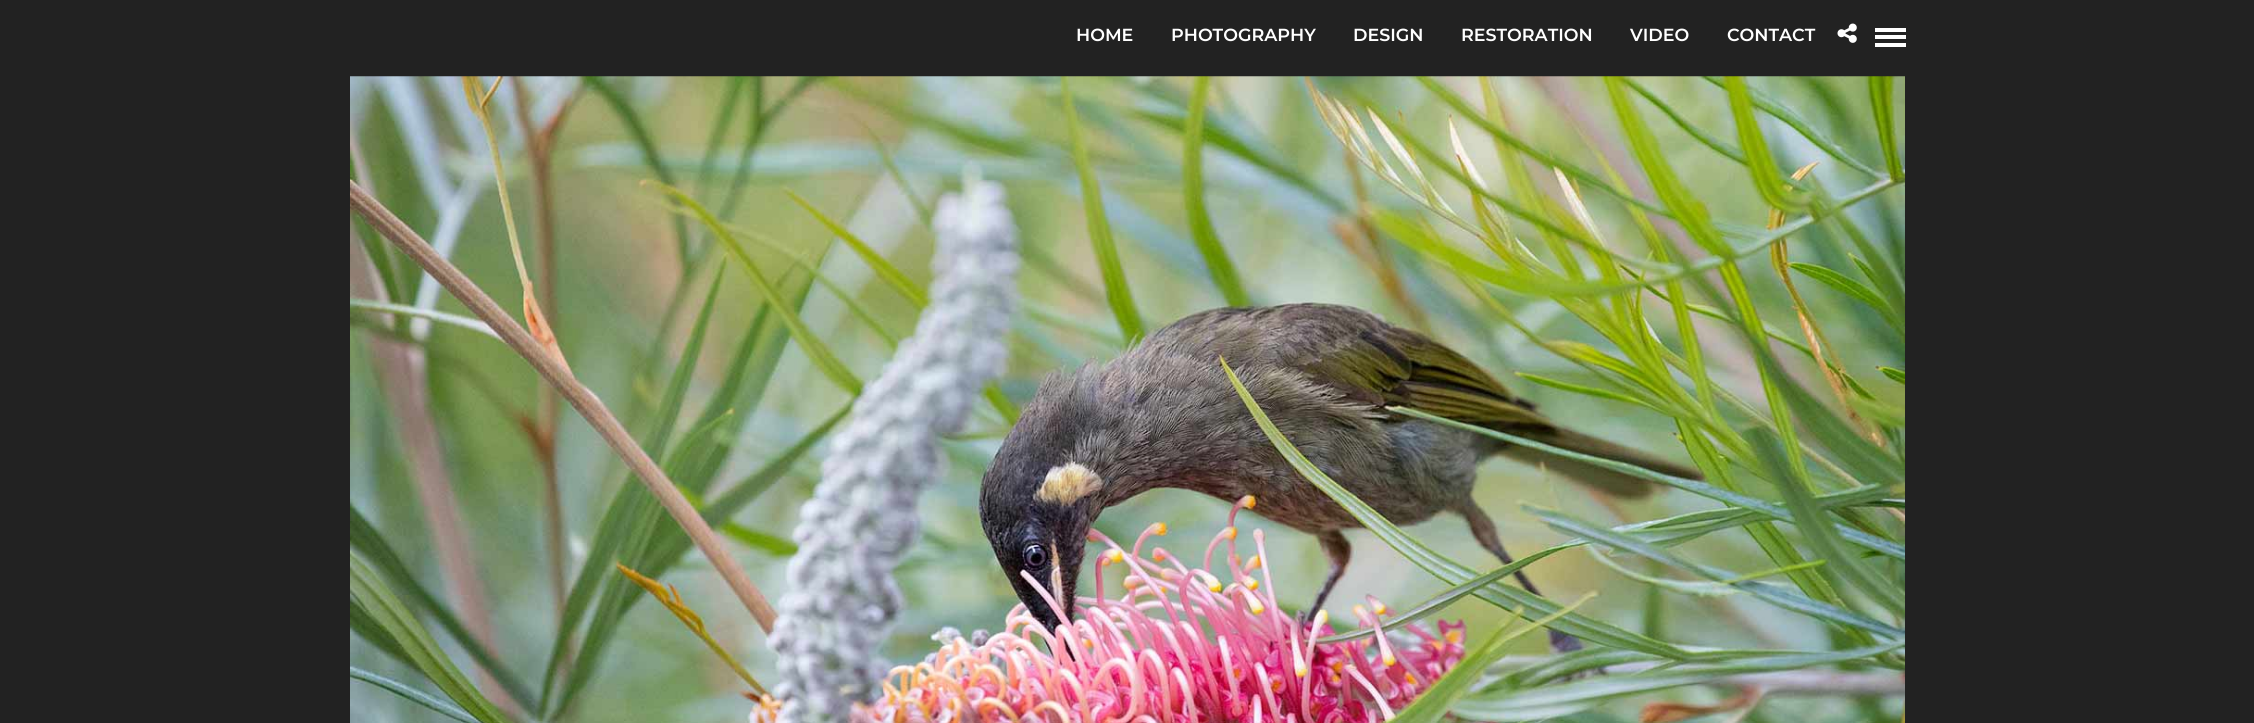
import math
import cairo


def use_color(cr, r, g, b):
  cr.set_source_rgb(r / 255, g / 255, b / 255)

def text(cr, x, y, s, family, size, color, bold=False, italic=False):
  cr.select_font_face(family, cairo.FONT_SLANT_ITALIC if italic else cairo.FONT_SLANT_NORMAL, cairo.FONT_WEIGHT_BOLD if bold else cairo.FONT_WEIGHT_NORMAL)
  cr.set_font_size(size)
  use_color(cr, *color)
  cr.move_to(x, y)
  cr.show_text(s)

def box(cr, x, y, w, h, *color):
  use_color(cr, *color)
  cr.rectangle(x, y, w, h)
  cr.fill()

def picture(cr, path, x, y, w, h):
  cr.save()
  cr.set_source_surface(cairo.ImageSurface.create_from_png(path), x, y)
  cr.rectangle(x, y, w, h)
  cr.fill()
  cr.restore()

def draw(cr):
  use_color(cr, 34, 34, 34)
  cr.paint()
  picture(cr, "img_01.png", 1837, 23, 20, 20)
  box(cr, 1875, 28, 31, 4, 255, 255, 255)
  box(cr, 1875, 35, 31, 4, 255, 255, 255)
  box(cr, 1875, 43, 31, 4, 255, 255, 255)
  picture(cr, "img_02.png", 350, 76, 1555, 647)
  text(cr, 1076, 41, "HOME", "Montserrat SemiBold", 17.5, (255, 255, 255))
  text(cr, 1171, 41, "PHOTOGRAPHY", "Montserrat SemiBold", 17.5, (255, 255, 255))
  text(cr, 1353, 41, "DESIGN", "Montserrat SemiBold", 17.5, (255, 255, 255))
  text(cr, 1461, 41, "RESTORATION", "Montserrat SemiBold", 17.5, (255, 255, 255))
  text(cr, 1630, 41, "VIDEO", "Montserrat SemiBold", 17.5, (255, 255, 255))
  text(cr, 1727, 41, "CONTACT", "Montserrat SemiBold", 17.5, (255, 255, 255))


surface = cairo.ImageSurface(cairo.FORMAT_RGB24, 2254, 723)
cr = cairo.Context(surface)
options = cairo.FontOptions()
options.set_hint_metrics(cairo.HINT_METRICS_OFF)
options.set_hint_style(cairo.HINT_STYLE_NONE)
cr.set_font_options(options)
cr.set_miter_limit(4)
draw(cr)
surface.write_to_png("out.png")
